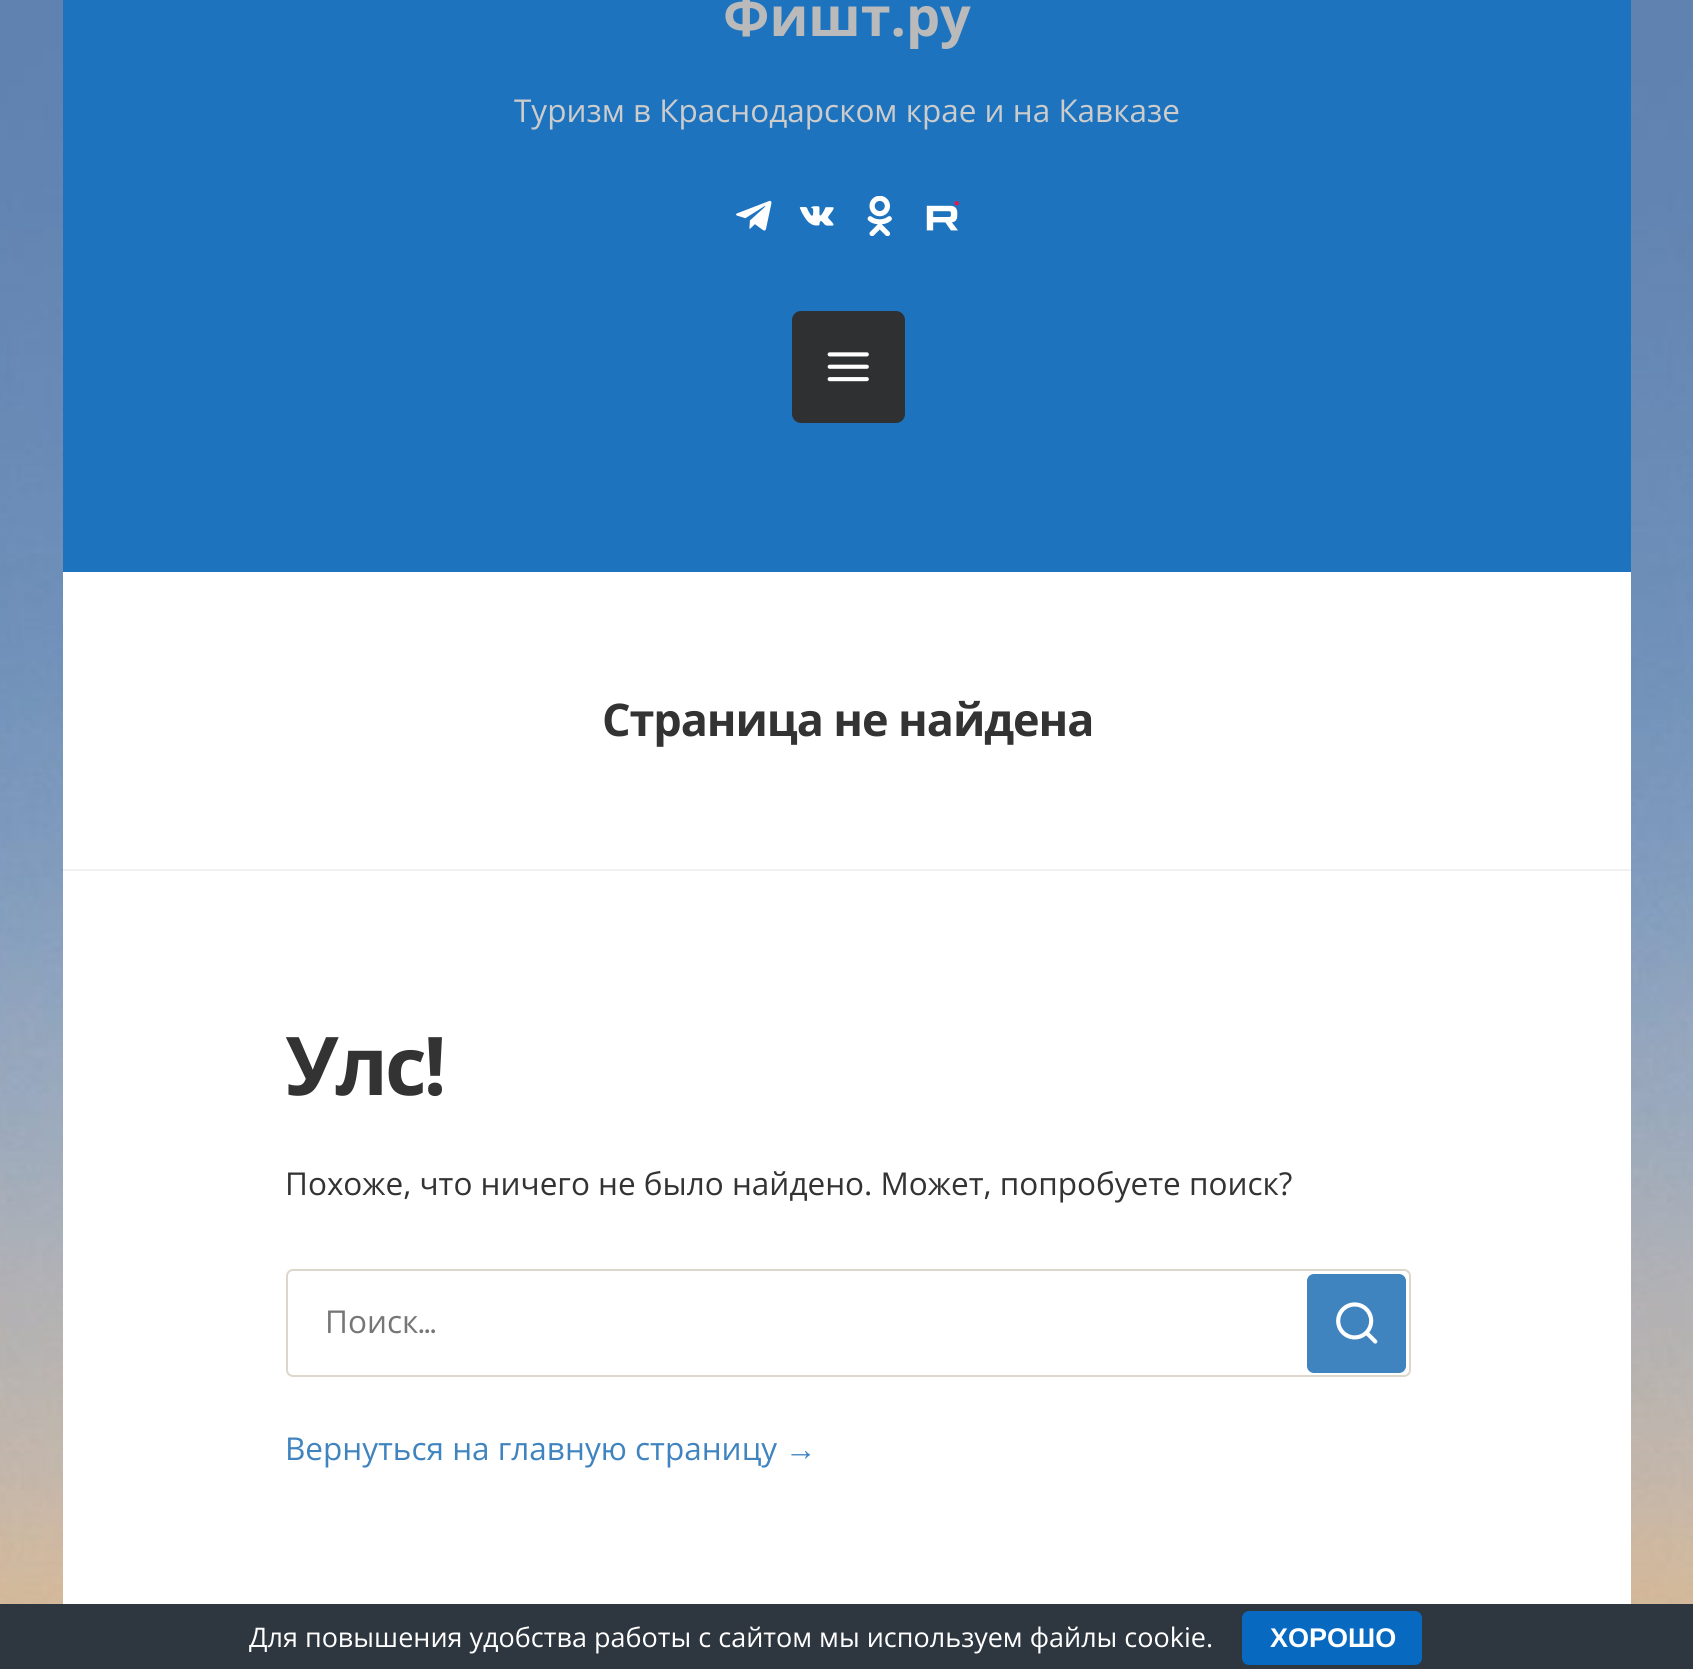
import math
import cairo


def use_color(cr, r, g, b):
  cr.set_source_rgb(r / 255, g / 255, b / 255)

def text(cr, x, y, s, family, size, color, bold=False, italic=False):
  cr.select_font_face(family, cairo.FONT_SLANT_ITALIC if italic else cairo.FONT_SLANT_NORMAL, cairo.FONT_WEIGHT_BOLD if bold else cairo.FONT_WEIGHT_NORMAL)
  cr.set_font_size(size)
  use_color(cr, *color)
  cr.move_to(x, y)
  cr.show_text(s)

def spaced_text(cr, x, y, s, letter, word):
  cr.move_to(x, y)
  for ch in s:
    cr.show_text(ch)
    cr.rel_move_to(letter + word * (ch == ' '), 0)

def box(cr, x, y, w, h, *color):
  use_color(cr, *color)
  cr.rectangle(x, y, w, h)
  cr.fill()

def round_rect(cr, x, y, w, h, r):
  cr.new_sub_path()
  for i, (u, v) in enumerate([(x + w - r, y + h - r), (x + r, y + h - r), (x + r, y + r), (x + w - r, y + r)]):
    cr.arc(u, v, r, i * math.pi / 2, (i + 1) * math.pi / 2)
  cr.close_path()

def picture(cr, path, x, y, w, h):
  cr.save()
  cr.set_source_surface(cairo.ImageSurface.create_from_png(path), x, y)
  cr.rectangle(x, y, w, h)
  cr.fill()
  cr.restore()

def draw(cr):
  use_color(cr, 255, 255, 255)
  cr.paint()
  picture(cr, "img_01.png", 0, 0, 1693, 1604)
  box(cr, 63, 0, 1568, 572, 30, 115, 190)
  picture(cr, "img_02.png", 736, 200, 36, 31)
  picture(cr, "img_03.png", 799, 206, 35, 20)
  picture(cr, "img_04.png", 867, 196, 25, 40)
  picture(cr, "img_05.png", 926, 201, 33, 30)
  use_color(cr, 47, 48, 50)
  round_rect(cr, 792, 311, 113, 112, 9)
  cr.fill()
  picture(cr, "img_06.png", 827, 352, 42, 30)
  box(cr, 63, 572, 1568, 1032, 255, 255, 255)
  box(cr, 63, 869, 1568, 2, 241, 241, 241)
  round_rect(cr, 287, 1270, 1123, 106, 6)
  use_color(cr, 220, 215, 202)
  cr.stroke()
  use_color(cr, 63, 131, 191)
  round_rect(cr, 1307, 1274, 99, 99, 7)
  cr.fill()
  picture(cr, "img_07.png", 1336, 1302, 42, 42)
  box(cr, 0, 1604, 1693, 65, 46, 54, 63)
  use_color(cr, 7, 105, 191)
  round_rect(cr, 1242, 1611, 180, 54, 7)
  cr.fill()
  text(cr, 723, 36, "Фишт.ру", "Open Sans", 54, (186, 186, 186), bold=True)
  text(cr, 514, 122, "Туризм в Краснодарском крае и на Кавказе", "Open Sans", 31.5, (204, 204, 204))
  cr.select_font_face("Open Sans", cairo.FONT_SLANT_NORMAL, cairo.FONT_WEIGHT_BOLD)
  cr.set_font_size(45)
  use_color(cr, 51, 51, 51)
  spaced_text(cr, 602, 736, "Страница не найдена", -1.1, 0)
  cr.set_font_size(81)
  spaced_text(cr, 285, 1095, "Улс!", -3, 0)
  text(cr, 285, 1195, "Похоже, что ничего не было найдено. Может, попробуете поиск?", "Open Sans", 31.5, (51, 51, 51))
  text(cr, 325, 1333, "Поиск", "Open Sans", 31.5, (118, 118, 118))
  text(cr, 418, 1333, "…", "Poppins", 31.5, (118, 118, 118))
  text(cr, 285, 1460, "Вернуться на главную страницу", "Open Sans", 31.5, (63, 131, 191))
  text(cr, 785, 1460, "→", "Liberation Sans", 31.5, (63, 131, 191))
  text(cr, 249, 1647, "Для повышения удобства работы с сайтом мы используем файлы cookie.", "Open Sans", 27, (255, 255, 255))
  text(cr, 1270, 1647, "ХОРОШО", "Liberation Sans", 27, (255, 255, 255), bold=True)


surface = cairo.ImageSurface(cairo.FORMAT_RGB24, 1693, 1669)
cr = cairo.Context(surface)
options = cairo.FontOptions()
options.set_hint_metrics(cairo.HINT_METRICS_OFF)
options.set_hint_style(cairo.HINT_STYLE_NONE)
cr.set_font_options(options)
cr.set_miter_limit(4)
draw(cr)
surface.write_to_png("out.png")
